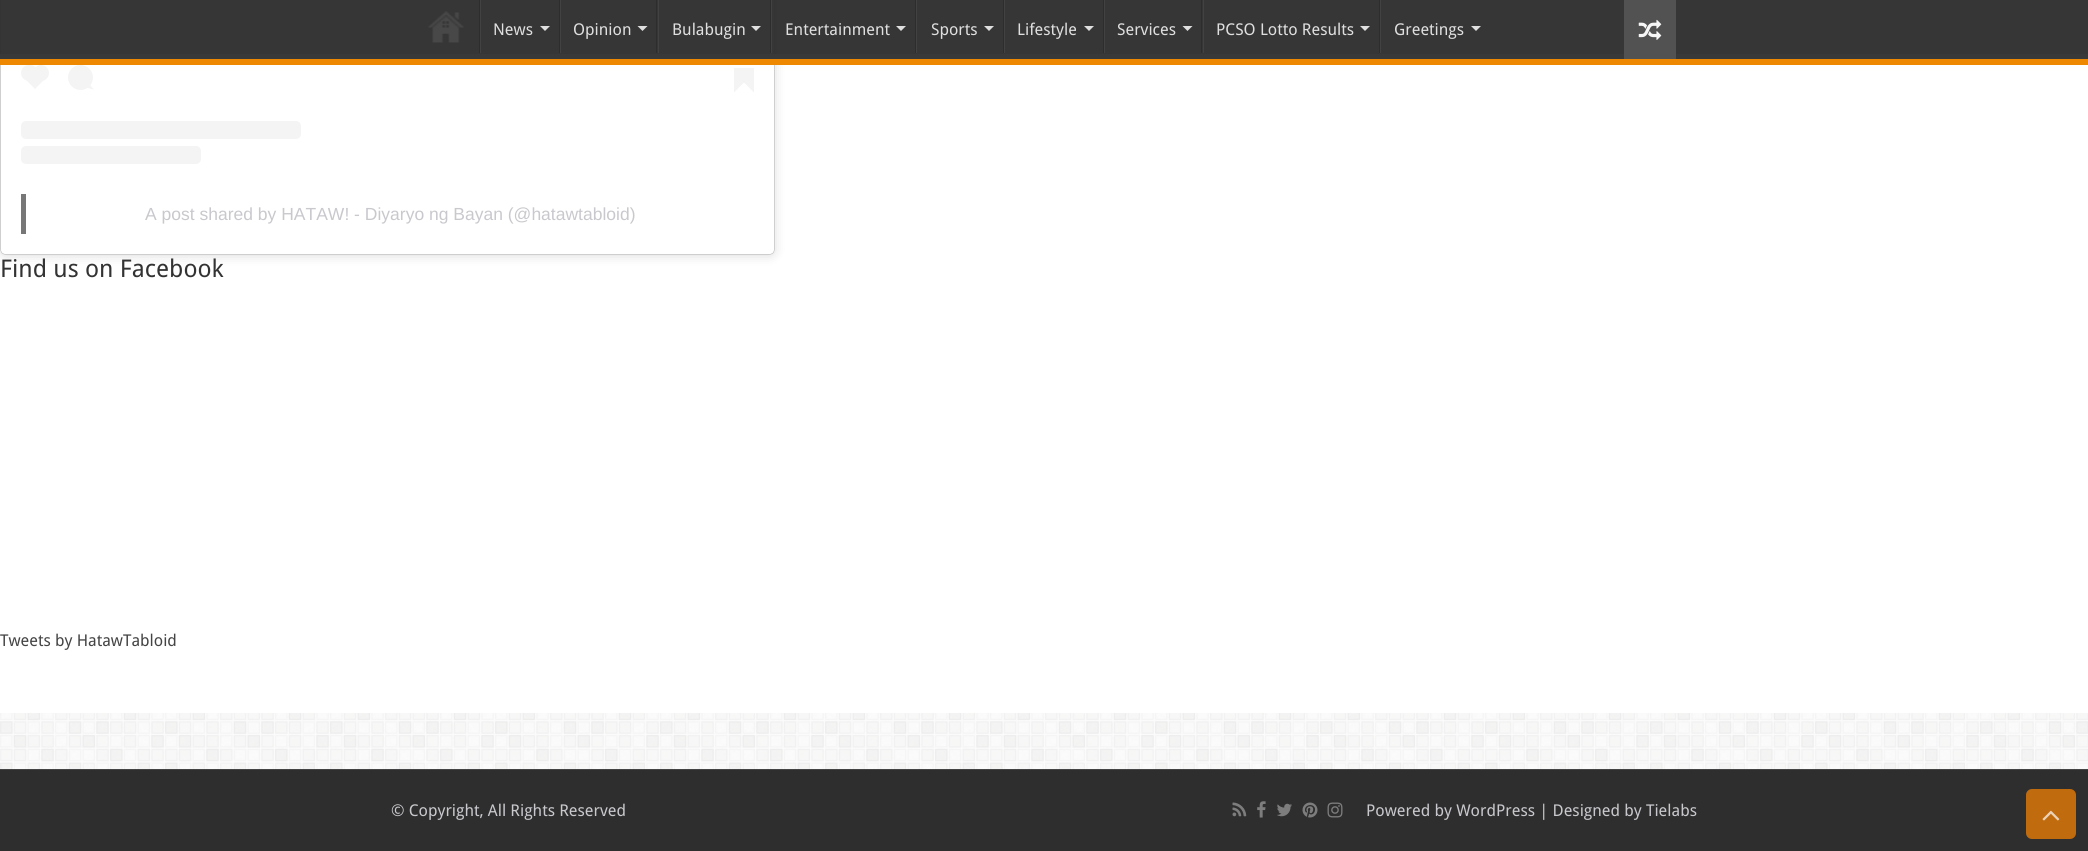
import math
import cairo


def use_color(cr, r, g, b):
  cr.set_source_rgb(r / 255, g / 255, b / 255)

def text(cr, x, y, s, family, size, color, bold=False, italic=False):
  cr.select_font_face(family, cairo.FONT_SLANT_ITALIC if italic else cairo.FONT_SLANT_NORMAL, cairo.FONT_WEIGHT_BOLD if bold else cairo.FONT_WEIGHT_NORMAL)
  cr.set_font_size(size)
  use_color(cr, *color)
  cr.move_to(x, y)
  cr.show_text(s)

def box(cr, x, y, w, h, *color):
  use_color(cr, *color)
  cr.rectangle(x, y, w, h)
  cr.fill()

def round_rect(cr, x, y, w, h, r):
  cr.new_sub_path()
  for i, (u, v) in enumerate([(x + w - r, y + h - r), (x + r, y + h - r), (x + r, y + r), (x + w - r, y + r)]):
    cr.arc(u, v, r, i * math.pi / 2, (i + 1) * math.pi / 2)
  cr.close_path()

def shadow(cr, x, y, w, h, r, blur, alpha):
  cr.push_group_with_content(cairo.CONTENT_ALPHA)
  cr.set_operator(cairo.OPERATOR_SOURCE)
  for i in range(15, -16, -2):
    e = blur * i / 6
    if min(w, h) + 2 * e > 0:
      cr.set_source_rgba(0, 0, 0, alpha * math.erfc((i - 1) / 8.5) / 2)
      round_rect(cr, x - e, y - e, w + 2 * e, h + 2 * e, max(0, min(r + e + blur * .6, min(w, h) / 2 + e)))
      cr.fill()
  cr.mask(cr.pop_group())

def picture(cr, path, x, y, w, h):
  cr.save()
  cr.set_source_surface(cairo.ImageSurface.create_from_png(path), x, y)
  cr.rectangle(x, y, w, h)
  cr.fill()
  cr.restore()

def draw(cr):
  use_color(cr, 255, 255, 255)
  cr.paint()
  picture(cr, "img_01.png", 0, 713, 2088, 56)
  use_color(cr, 0, 0, 0)
  shadow(cr, 1, -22, 773, 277, 4, 6, 0.15)
  shadow(cr, 1, -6, 773, 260, 4, 0.5, 0.5)
  use_color(cr, 255, 255, 255)
  round_rect(cr, 1, -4, 773, 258, 4)
  cr.fill()
  cr.set_source_rgba(0.176, 0.176, 0.176, 0.95)
  cr.rectangle(0, 0, 2088, 54)
  cr.fill()
  cr.save()
  cr.rectangle(0, 0, 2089, 59)
  cr.clip()
  use_color(cr, 57, 57, 57)
  cr.set_fill_rule(cairo.FILL_RULE_EVEN_ODD)
  cr.new_path()
  cr.move_to(-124, -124)
  cr.line_to(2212, -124)
  cr.line_to(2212, 182)
  cr.line_to(-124, 182)
  cr.close_path()
  cr.move_to(-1, -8)
  cr.line_to(2088, -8)
  cr.curve_to(2088, -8, 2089, -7, 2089, -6)
  cr.line_to(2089, 52)
  cr.curve_to(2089, 53, 2088, 54, 2088, 54)
  cr.line_to(-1, 54)
  cr.curve_to(-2, 54, -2, 53, -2, 52)
  cr.line_to(-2, -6)
  cr.curve_to(-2, -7, -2, -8, -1, -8)
  cr.close_path()
  cr.fill()
  cr.restore()
  box(cr, 0, 59, 2088, 6, 238, 136, 3)
  picture(cr, "img_02.png", 428, 11, 36, 32)
  box(cr, 479, 0, 1, 53, 45, 45, 45)
  box(cr, 480, 0, 1, 53, 66, 66, 66)
  use_color(cr, 223, 223, 223)
  cr.new_path()
  cr.move_to(540, 26)
  cr.line_to(550, 26)
  cr.line_to(545, 31)
  cr.close_path()
  cr.fill()
  box(cr, 559, 0, 1, 53, 45, 45, 45)
  box(cr, 560, 0, 1, 53, 66, 66, 66)
  use_color(cr, 223, 223, 223)
  cr.new_path()
  cr.move_to(637.5, 26)
  cr.line_to(647.5, 26)
  cr.line_to(642.5, 31)
  cr.close_path()
  cr.fill()
  box(cr, 656, 0, 1, 53, 45, 45, 45)
  box(cr, 658, 0, 1, 53, 66, 66, 66)
  use_color(cr, 223, 223, 223)
  cr.new_path()
  cr.move_to(751, 26)
  cr.line_to(761, 26)
  cr.line_to(756, 31)
  cr.close_path()
  cr.fill()
  box(cr, 770, 0, 1, 53, 45, 45, 45)
  box(cr, 771, 0, 1, 53, 66, 66, 66)
  use_color(cr, 223, 223, 223)
  cr.new_path()
  cr.move_to(896, 26)
  cr.line_to(906, 26)
  cr.line_to(901, 31)
  cr.close_path()
  cr.fill()
  box(cr, 915, 0, 1, 53, 45, 45, 45)
  box(cr, 916, 0, 1, 53, 66, 66, 66)
  use_color(cr, 223, 223, 223)
  cr.new_path()
  cr.move_to(984, 26)
  cr.line_to(994, 26)
  cr.line_to(989, 31)
  cr.close_path()
  cr.fill()
  box(cr, 1003, 0, 1, 53, 45, 45, 45)
  box(cr, 1004, 0, 1, 53, 66, 66, 66)
  use_color(cr, 223, 223, 223)
  cr.new_path()
  cr.move_to(1084, 26)
  cr.line_to(1094, 26)
  cr.line_to(1089, 31)
  cr.close_path()
  cr.fill()
  box(cr, 1103, 0, 1, 53, 45, 45, 45)
  box(cr, 1104, 0, 1, 53, 66, 66, 66)
  use_color(cr, 223, 223, 223)
  cr.new_path()
  cr.move_to(1182.5, 26)
  cr.line_to(1192.5, 26)
  cr.line_to(1187.5, 31)
  cr.close_path()
  cr.fill()
  box(cr, 1201, 0, 1, 53, 45, 45, 45)
  box(cr, 1203, 0, 1, 53, 66, 66, 66)
  use_color(cr, 223, 223, 223)
  cr.new_path()
  cr.move_to(1360, 26)
  cr.line_to(1370, 26)
  cr.line_to(1365, 31)
  cr.close_path()
  cr.fill()
  box(cr, 1379, 0, 1, 53, 45, 45, 45)
  box(cr, 1380, 0, 1, 53, 66, 66, 66)
  use_color(cr, 223, 223, 223)
  cr.new_path()
  cr.move_to(1471, 26)
  cr.line_to(1481, 26)
  cr.line_to(1476, 31)
  cr.close_path()
  cr.fill()
  box(cr, 1624, 0, 52, 59, 82, 82, 82)
  picture(cr, "img_03.png", 1638, 19, 24, 21)
  use_color(cr, 244, 244, 244)
  round_rect(cr, 21, 65, 17, 16, 8)
  cr.fill()
  cr.new_path()
  cr.move_to(24, 78)
  cr.line_to(35, 67)
  cr.line_to(46, 78)
  cr.line_to(35, 89)
  cr.close_path()
  cr.fill()
  cr.arc(41, 73, 8, 0, 2 * math.pi)
  cr.fill()
  cr.arc(80.5, 77.5, 12.5, 0, 2 * math.pi)
  cr.fill()
  cr.new_path()
  cr.move_to(86, 87.5)
  cr.line_to(88.5, 83.5)
  cr.line_to(94, 89.5)
  cr.close_path()
  cr.fill()
  cr.new_path()
  cr.move_to(734, 82.5)
  cr.line_to(744, 82.5)
  cr.line_to(734, 92.5)
  cr.close_path()
  cr.fill()
  box(cr, 734, 68, 20, 15, 244, 244, 244)
  cr.new_path()
  cr.move_to(744, 82.5)
  cr.line_to(754, 82.5)
  cr.line_to(754, 92.5)
  cr.close_path()
  cr.fill()
  round_rect(cr, 21, 121, 280, 18, 5)
  cr.fill()
  round_rect(cr, 21, 146, 180, 18, 5)
  cr.fill()
  box(cr, 21, 194, 5, 40, 119, 119, 119)
  box(cr, 0, 770, 2088, 81, 46, 46, 46)
  box(cr, 0, 769, 2088, 1, 68, 68, 68)
  picture(cr, "img_04.png", 1232, 802, 15, 15)
  picture(cr, "img_05.png", 1257, 801, 9, 17)
  picture(cr, "img_06.png", 1277, 803, 15, 14)
  picture(cr, "img_07.png", 1302, 802, 16, 16)
  picture(cr, "img_08.png", 1327, 802, 16, 16)
  use_color(cr, 192, 107, 14)
  round_rect(cr, 2026, 789, 50, 50, 6)
  cr.fill()
  picture(cr, "img_09.png", 2042, 810, 18, 11)
  text(cr, 493, 35, "News", "Droid Sans", 16.25, (223, 223, 223))
  text(cr, 573, 35, "Opinion", "Droid Sans", 16.25, (223, 223, 223))
  text(cr, 672, 35, "Bulabugin", "Droid Sans", 16.25, (223, 223, 223))
  text(cr, 785, 35, "Entertainment", "Droid Sans", 16.25, (223, 223, 223))
  text(cr, 931, 35, "Sports", "Droid Sans", 16.25, (223, 223, 223))
  text(cr, 1017, 35, "Lifestyle", "Droid Sans", 16.25, (223, 223, 223))
  text(cr, 1117, 35, "Services", "Droid Sans", 16.25, (223, 223, 223))
  text(cr, 1216, 35, "PCSO Lotto Results", "Droid Sans", 16.25, (223, 223, 223))
  text(cr, 1394, 35, "Greetings", "Droid Sans", 16.25, (223, 223, 223))
  text(cr, 145, 220, "A post shared by HATAW! - Diyaryo ng Bayan (@hatawtabloid)", "Liberation Sans", 17.5, (201, 200, 205))
  text(cr, 0, 277, "Find us on Facebook", "Droid Sans", 24.4, (51, 51, 51))
  text(cr, 0, 646, "Tweets by HatawTabloid", "Droid Sans", 16.25, (68, 68, 68))
  text(cr, 391, 816, "© Copyright, All Rights Reserved", "Droid Sans", 16.25, (201, 200, 205))
  text(cr, 1366, 816, "Powered by WordPress | Designed by Tielabs", "Droid Sans", 16.25, (201, 200, 205))


surface = cairo.ImageSurface(cairo.FORMAT_RGB24, 2088, 851)
cr = cairo.Context(surface)
options = cairo.FontOptions()
options.set_hint_metrics(cairo.HINT_METRICS_OFF)
options.set_hint_style(cairo.HINT_STYLE_NONE)
cr.set_font_options(options)
cr.set_miter_limit(4)
draw(cr)
surface.write_to_png("out.png")
